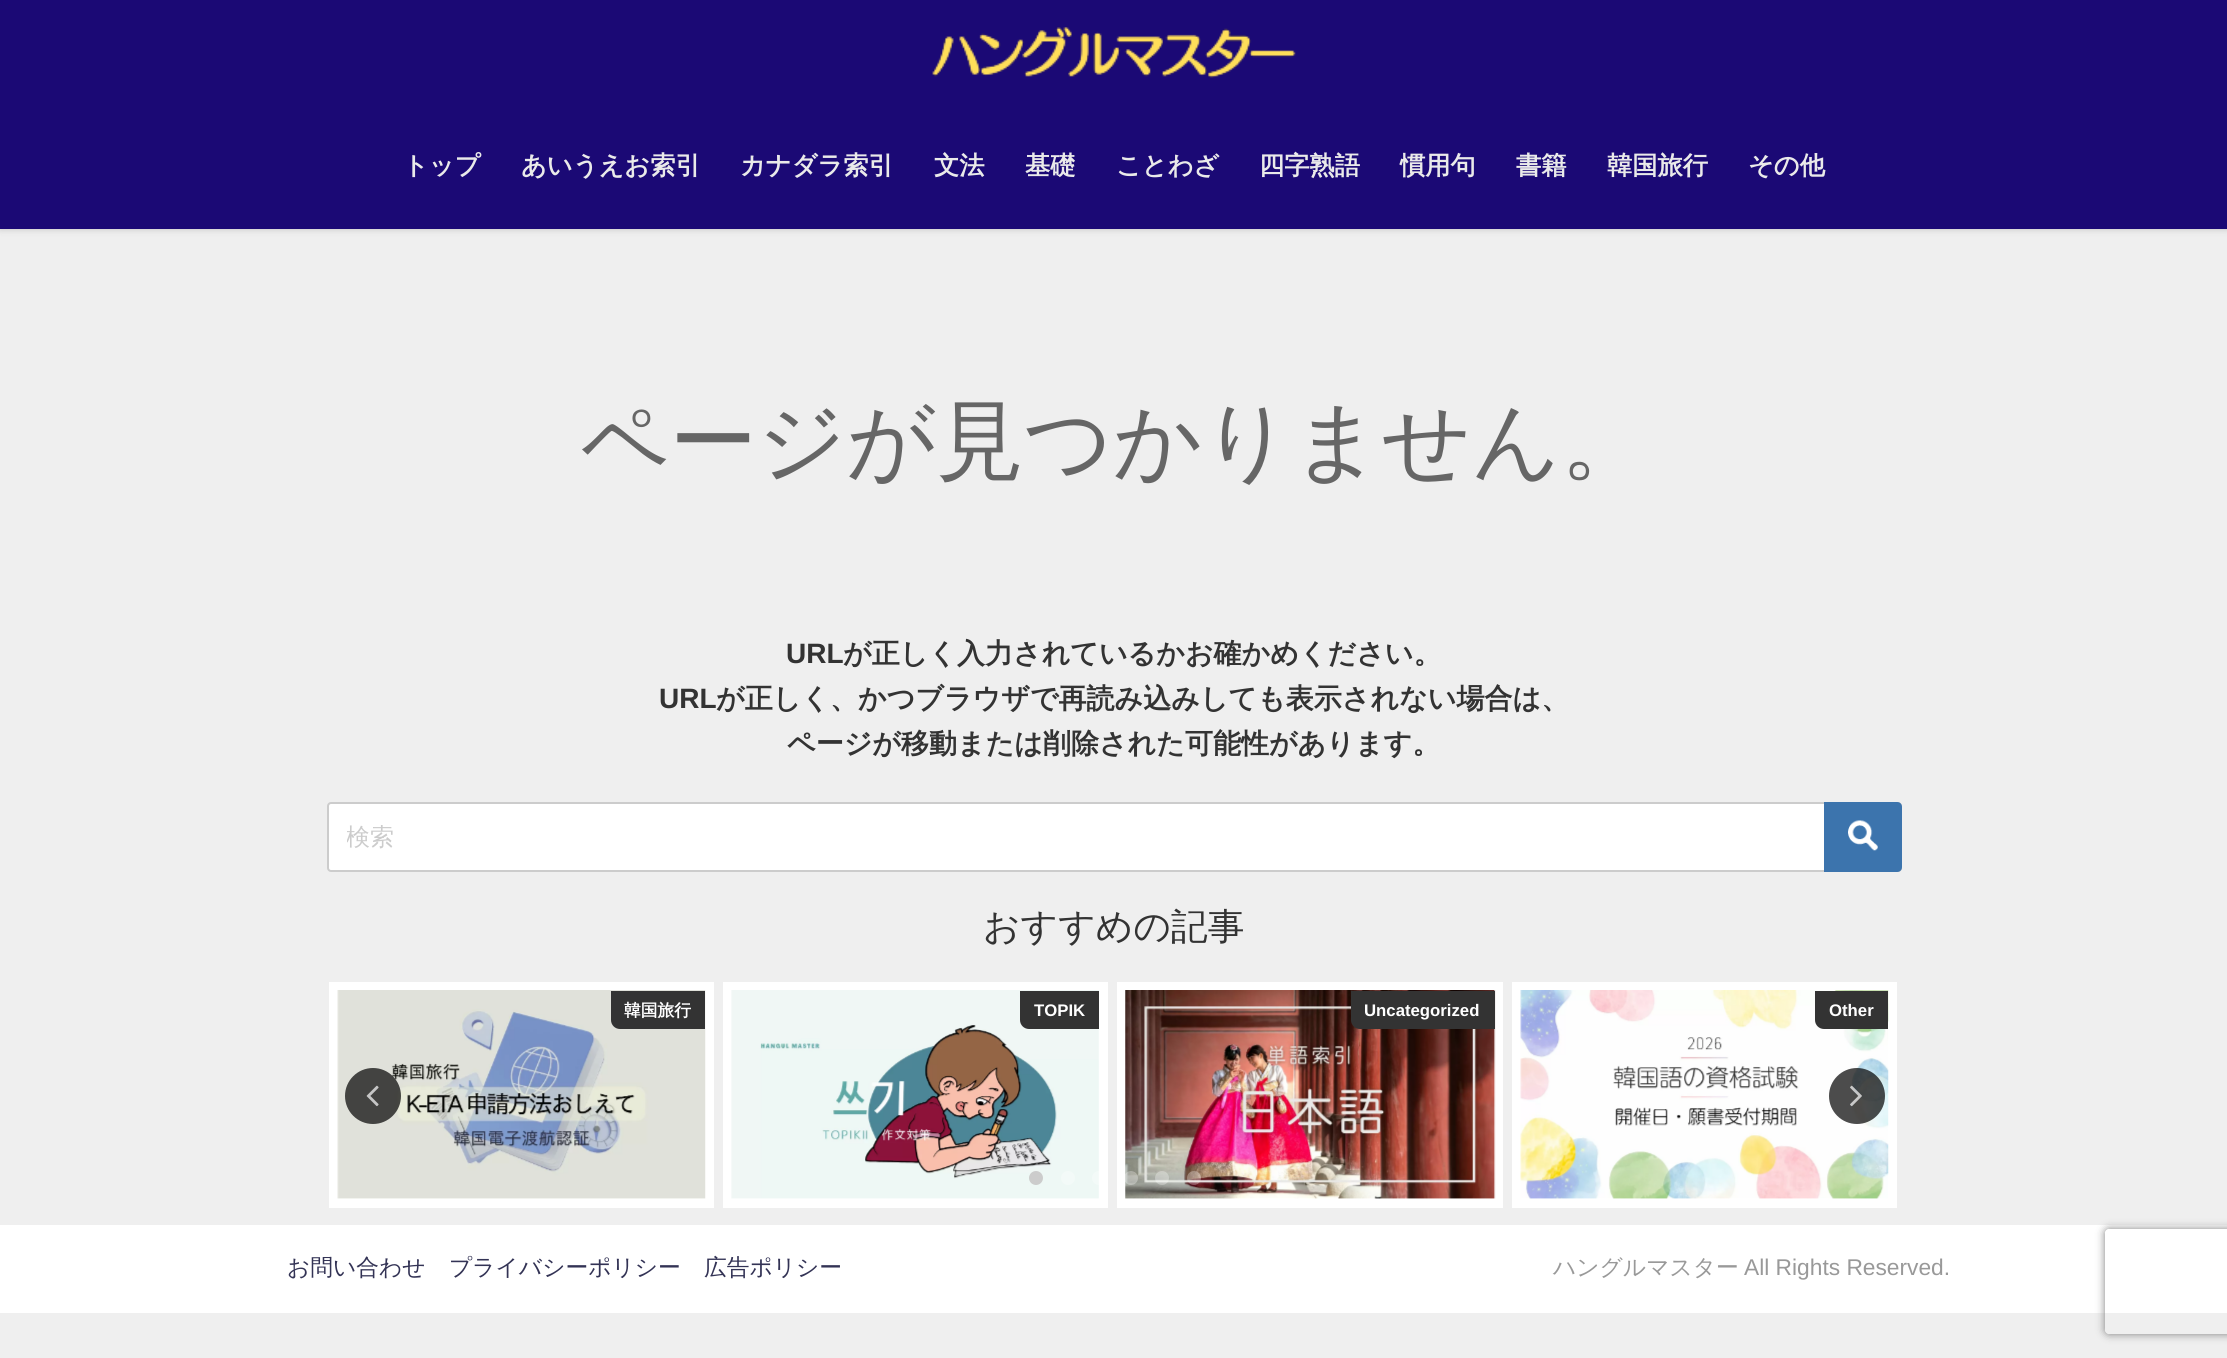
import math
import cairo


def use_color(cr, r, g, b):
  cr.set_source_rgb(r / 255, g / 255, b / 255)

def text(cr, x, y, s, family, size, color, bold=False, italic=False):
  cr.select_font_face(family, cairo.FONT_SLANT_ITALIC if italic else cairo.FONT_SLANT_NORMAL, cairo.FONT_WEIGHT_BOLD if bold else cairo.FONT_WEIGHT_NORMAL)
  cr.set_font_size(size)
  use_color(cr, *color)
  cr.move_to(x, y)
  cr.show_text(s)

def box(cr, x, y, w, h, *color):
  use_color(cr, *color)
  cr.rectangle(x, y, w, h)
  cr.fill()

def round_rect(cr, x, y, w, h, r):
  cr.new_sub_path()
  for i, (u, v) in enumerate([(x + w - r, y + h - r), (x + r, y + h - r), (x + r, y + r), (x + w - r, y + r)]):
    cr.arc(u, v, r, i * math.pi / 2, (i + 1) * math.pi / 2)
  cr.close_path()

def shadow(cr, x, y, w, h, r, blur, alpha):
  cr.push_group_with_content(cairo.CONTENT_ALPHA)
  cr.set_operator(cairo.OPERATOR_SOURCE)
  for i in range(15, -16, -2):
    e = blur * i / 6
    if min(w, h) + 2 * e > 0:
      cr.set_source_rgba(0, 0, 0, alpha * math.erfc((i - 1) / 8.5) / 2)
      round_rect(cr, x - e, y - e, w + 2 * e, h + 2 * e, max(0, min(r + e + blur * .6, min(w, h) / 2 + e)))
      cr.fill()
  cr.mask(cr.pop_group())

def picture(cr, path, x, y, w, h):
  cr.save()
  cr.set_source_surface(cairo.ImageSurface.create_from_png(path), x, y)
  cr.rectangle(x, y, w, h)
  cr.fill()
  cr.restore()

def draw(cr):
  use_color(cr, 239, 239, 239)
  cr.paint()
  use_color(cr, 0, 0, 0)
  shadow(cr, 0, -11, 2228, 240, 0, 3.5, 0.2)
  box(cr, 0, 0, 2227, 229, 27, 9, 117)
  picture(cr, "img_01.png", 932, 27, 364, 51)
  use_color(cr, 255, 255, 255)
  round_rect(cr, 328, 803, 1573, 68, 3)
  cr.fill_preserve()
  use_color(cr, 204, 204, 204)
  cr.stroke()
  use_color(cr, 60, 116, 173)
  cr.new_path()
  cr.move_to(1824, 802)
  cr.line_to(1897, 802)
  cr.curve_to(1900, 802, 1902, 804, 1902, 807)
  cr.line_to(1902, 867)
  cr.curve_to(1902, 870, 1900, 872, 1897, 872)
  cr.line_to(1824, 872)
  cr.close_path()
  cr.fill()
  picture(cr, "img_02.png", 1848, 820, 30, 31)
  box(cr, 329, 982, 385, 226, 255, 255, 255)
  picture(cr, "img_03.png", 337, 990, 369, 209)
  use_color(cr, 51, 51, 51)
  cr.new_path()
  cr.move_to(611, 991)
  cr.line_to(705, 991)
  cr.line_to(705, 1029)
  cr.line_to(620, 1029)
  cr.curve_to(615, 1029, 611, 1025, 611, 1020)
  cr.close_path()
  cr.fill()
  box(cr, 723, 982, 385, 226, 255, 255, 255)
  picture(cr, "img_04.png", 731, 990, 368, 209)
  use_color(cr, 51, 51, 51)
  cr.new_path()
  cr.move_to(1020, 991)
  cr.line_to(1099, 991)
  cr.line_to(1099, 1029)
  cr.line_to(1029, 1029)
  cr.curve_to(1024, 1029, 1020, 1025, 1020, 1020)
  cr.close_path()
  cr.fill()
  box(cr, 1117, 982, 386, 226, 255, 255, 255)
  picture(cr, "img_05.png", 1125, 990, 371, 209)
  use_color(cr, 51, 51, 51)
  cr.new_path()
  cr.move_to(1351, 991)
  cr.line_to(1495, 991)
  cr.line_to(1495, 1029)
  cr.line_to(1360, 1029)
  cr.curve_to(1355, 1029, 1351, 1025, 1351, 1020)
  cr.close_path()
  cr.fill()
  box(cr, 1512, 982, 385, 226, 255, 255, 255)
  picture(cr, "img_06.png", 1520, 990, 369, 209)
  use_color(cr, 51, 51, 51)
  cr.new_path()
  cr.move_to(1815, 991)
  cr.line_to(1888, 991)
  cr.line_to(1888, 1029)
  cr.line_to(1824, 1029)
  cr.curve_to(1819, 1029, 1815, 1025, 1815, 1020)
  cr.close_path()
  cr.fill()
  cr.set_source_rgba(0, 0, 0, 0.7)
  cr.arc(373, 1096, 28, 0, 2 * math.pi)
  cr.fill()
  picture(cr, "img_07.png", 366, 1085, 13, 22)
  cr.arc(1857, 1096, 28, 0, 2 * math.pi)
  cr.fill()
  picture(cr, "img_08.png", 1850, 1085, 12, 22)
  use_color(cr, 204, 204, 204)
  cr.arc(1036, 1178, 7, 0, 2 * math.pi)
  cr.fill()
  use_color(cr, 243, 250, 248)
  cr.arc(1068, 1178, 7, 0, 2 * math.pi)
  cr.fill()
  cr.set_source_rgba(1, 1, 1, 0.3)
  cr.arc(1099, 1178, 7, 0, 2 * math.pi)
  cr.fill()
  cr.arc(1131, 1178, 7, 0, 2 * math.pi)
  cr.fill()
  cr.arc(1162, 1178, 7, 0, 2 * math.pi)
  cr.fill()
  cr.arc(1194, 1178, 7, 0, 2 * math.pi)
  cr.fill()
  box(cr, 0, 1225, 2227, 88, 255, 255, 255)
  cr.save()
  cr.set_fill_rule(cairo.FILL_RULE_EVEN_ODD)
  cr.new_path()
  cr.move_to(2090, 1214)
  cr.line_to(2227, 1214)
  cr.line_to(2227, 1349)
  cr.line_to(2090, 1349)
  cr.close_path()
  cr.move_to(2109, 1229)
  cr.line_to(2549, 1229)
  cr.curve_to(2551, 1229, 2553, 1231, 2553, 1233)
  cr.line_to(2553, 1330)
  cr.curve_to(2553, 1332, 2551, 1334, 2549, 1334)
  cr.line_to(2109, 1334)
  cr.curve_to(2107, 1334, 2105, 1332, 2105, 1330)
  cr.line_to(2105, 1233)
  cr.curve_to(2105, 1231, 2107, 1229, 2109, 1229)
  cr.close_path()
  cr.clip()
  use_color(cr, 128, 128, 128)
  shadow(cr, 2105, 1229, 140, 105, 4, 4.5, 1)
  cr.restore()
  text(cr, 403, 174, "トップ", "WenQuanYi Zen Hei", 25.25, (234, 234, 234), bold=True)
  text(cr, 521, 174, "あいうえお索引", "WenQuanYi Zen Hei", 25.25, (234, 234, 234), bold=True)
  text(cr, 740, 174, "カナダラ索引", "WenQuanYi Zen Hei", 25.25, (234, 234, 234), bold=True)
  text(cr, 934, 174, "文法", "WenQuanYi Zen Hei", 25.25, (234, 234, 234), bold=True)
  text(cr, 1025, 174, "基礎", "WenQuanYi Zen Hei", 25.25, (234, 234, 234), bold=True)
  text(cr, 1116, 174, "ことわざ", "WenQuanYi Zen Hei", 25.25, (234, 234, 234), bold=True)
  text(cr, 1259, 174, "四字熟語", "WenQuanYi Zen Hei", 25.25, (234, 234, 234), bold=True)
  text(cr, 1400, 174, "慣用句", "WenQuanYi Zen Hei", 25.25, (234, 234, 234), bold=True)
  text(cr, 1516, 174, "書籍", "WenQuanYi Zen Hei", 25.25, (234, 234, 234), bold=True)
  text(cr, 1607, 174, "韓国旅行", "WenQuanYi Zen Hei", 25.25, (234, 234, 234), bold=True)
  text(cr, 1748, 174, "その他", "WenQuanYi Zen Hei", 25.25, (234, 234, 234), bold=True)
  text(cr, 580, 471, "ページが見つかりません。", "WenQuanYi Zen Hei Medium", 87.5, (102, 102, 102))
  text(cr, 786, 663, "URL", "Liberation Sans", 28, (51, 51, 51), bold=True)
  text(cr, 843, 663, "が正しく入力されているかお確かめください。", "WenQuanYi Zen Hei", 28, (51, 51, 51), bold=True)
  text(cr, 659, 708, "URL", "Liberation Sans", 28, (51, 51, 51), bold=True)
  text(cr, 716, 708, "が正しく、かつブラウザで再読み込みしても表示されない場合は、", "WenQuanYi Zen Hei", 28, (51, 51, 51), bold=True)
  text(cr, 787, 753, "ページが移動または削除された可能性があります。", "WenQuanYi Zen Hei", 28, (51, 51, 51), bold=True)
  cr.save()
  cr.rectangle(347, 823, 1466, 31)
  cr.clip()
  text(cr, 346, 845, "検索", "WenQuanYi Zen Hei Medium", 24, (204, 204, 204))
  cr.restore()
  text(cr, 983, 939, "おすすめの記事", "WenQuanYi Zen Hei Medium", 36.75, (51, 51, 51))
  text(cr, 624, 1016, "韓国旅行", "WenQuanYi Zen Hei", 16.75, (255, 255, 255), bold=True)
  text(cr, 1034, 1016, "TOPIK", "Liberation Sans", 16.75, (255, 255, 255), bold=True)
  text(cr, 1364, 1016, "Uncategorized", "Liberation Sans", 16.75, (255, 255, 255), bold=True)
  text(cr, 1829, 1016, "Other", "Liberation Sans", 16.75, (255, 255, 255), bold=True)
  text(cr, 287, 1275, "お問い合わせ", "WenQuanYi Zen Hei Medium", 22.75, (51, 51, 85))
  text(cr, 449, 1275, "プライバシーポリシー", "WenQuanYi Zen Hei Medium", 22.75, (51, 51, 85))
  text(cr, 704, 1275, "広告ポリシー", "WenQuanYi Zen Hei Medium", 22.75, (51, 51, 85))
  text(cr, 1553, 1275, "ハングルマスター", "WenQuanYi Zen Hei Medium", 22.75, (153, 153, 153))
  text(cr, 1744, 1275, "All Rights Reserved.", "Liberation Sans", 22.75, (153, 153, 153))


surface = cairo.ImageSurface(cairo.FORMAT_RGB24, 2227, 1358)
cr = cairo.Context(surface)
options = cairo.FontOptions()
options.set_hint_metrics(cairo.HINT_METRICS_OFF)
options.set_hint_style(cairo.HINT_STYLE_NONE)
cr.set_font_options(options)
cr.set_miter_limit(4)
draw(cr)
surface.write_to_png("out.png")
